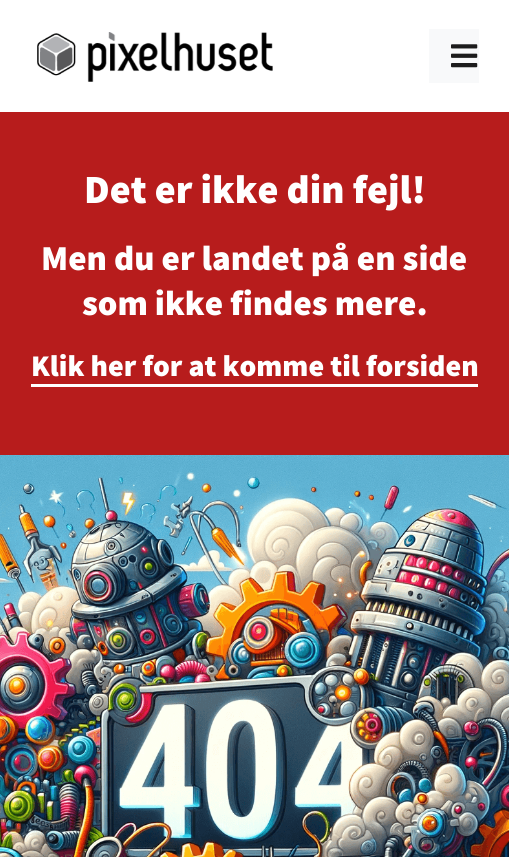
import math
import cairo


def use_color(cr, r, g, b):
  cr.set_source_rgb(r / 255, g / 255, b / 255)

def text(cr, x, y, s, family, size, color, bold=False, italic=False):
  cr.select_font_face(family, cairo.FONT_SLANT_ITALIC if italic else cairo.FONT_SLANT_NORMAL, cairo.FONT_WEIGHT_BOLD if bold else cairo.FONT_WEIGHT_NORMAL)
  cr.set_font_size(size)
  use_color(cr, *color)
  cr.move_to(x, y)
  cr.show_text(s)

def box(cr, x, y, w, h, *color):
  use_color(cr, *color)
  cr.rectangle(x, y, w, h)
  cr.fill()

def picture(cr, path, x, y, w, h):
  cr.save()
  cr.set_source_surface(cairo.ImageSurface.create_from_png(path), x, y)
  cr.rectangle(x, y, w, h)
  cr.fill()
  cr.restore()

def draw(cr):
  use_color(cr, 255, 255, 255)
  cr.paint()
  picture(cr, "img_01.png", 37, 32, 236, 50)
  box(cr, 429, 29, 50, 54, 248, 249, 250)
  picture(cr, "img_02.png", 451, 44, 27, 24)
  box(cr, 0, 112, 509, 343, 183, 28, 28)
  box(cr, 31, 384, 447, 3, 255, 255, 255)
  picture(cr, "img_03.png", 0, 455, 509, 402)
  text(cr, 84, 203, "Det er ikke din fejl!", "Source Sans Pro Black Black", 40, (255, 255, 255))
  text(cr, 41, 270, "Men du er landet på en side", "Source Sans Pro Black Black", 35, (255, 255, 255))
  text(cr, 82, 315, "som ikke findes mere.", "Source Sans Pro Black Black", 35, (255, 255, 255))
  text(cr, 31, 376, "Klik her for at komme til forsiden", "Source Sans Pro Black Black", 30, (255, 255, 255))


surface = cairo.ImageSurface(cairo.FORMAT_RGB24, 509, 857)
cr = cairo.Context(surface)
options = cairo.FontOptions()
options.set_hint_metrics(cairo.HINT_METRICS_OFF)
options.set_hint_style(cairo.HINT_STYLE_NONE)
cr.set_font_options(options)
cr.set_miter_limit(4)
draw(cr)
surface.write_to_png("out.png")
